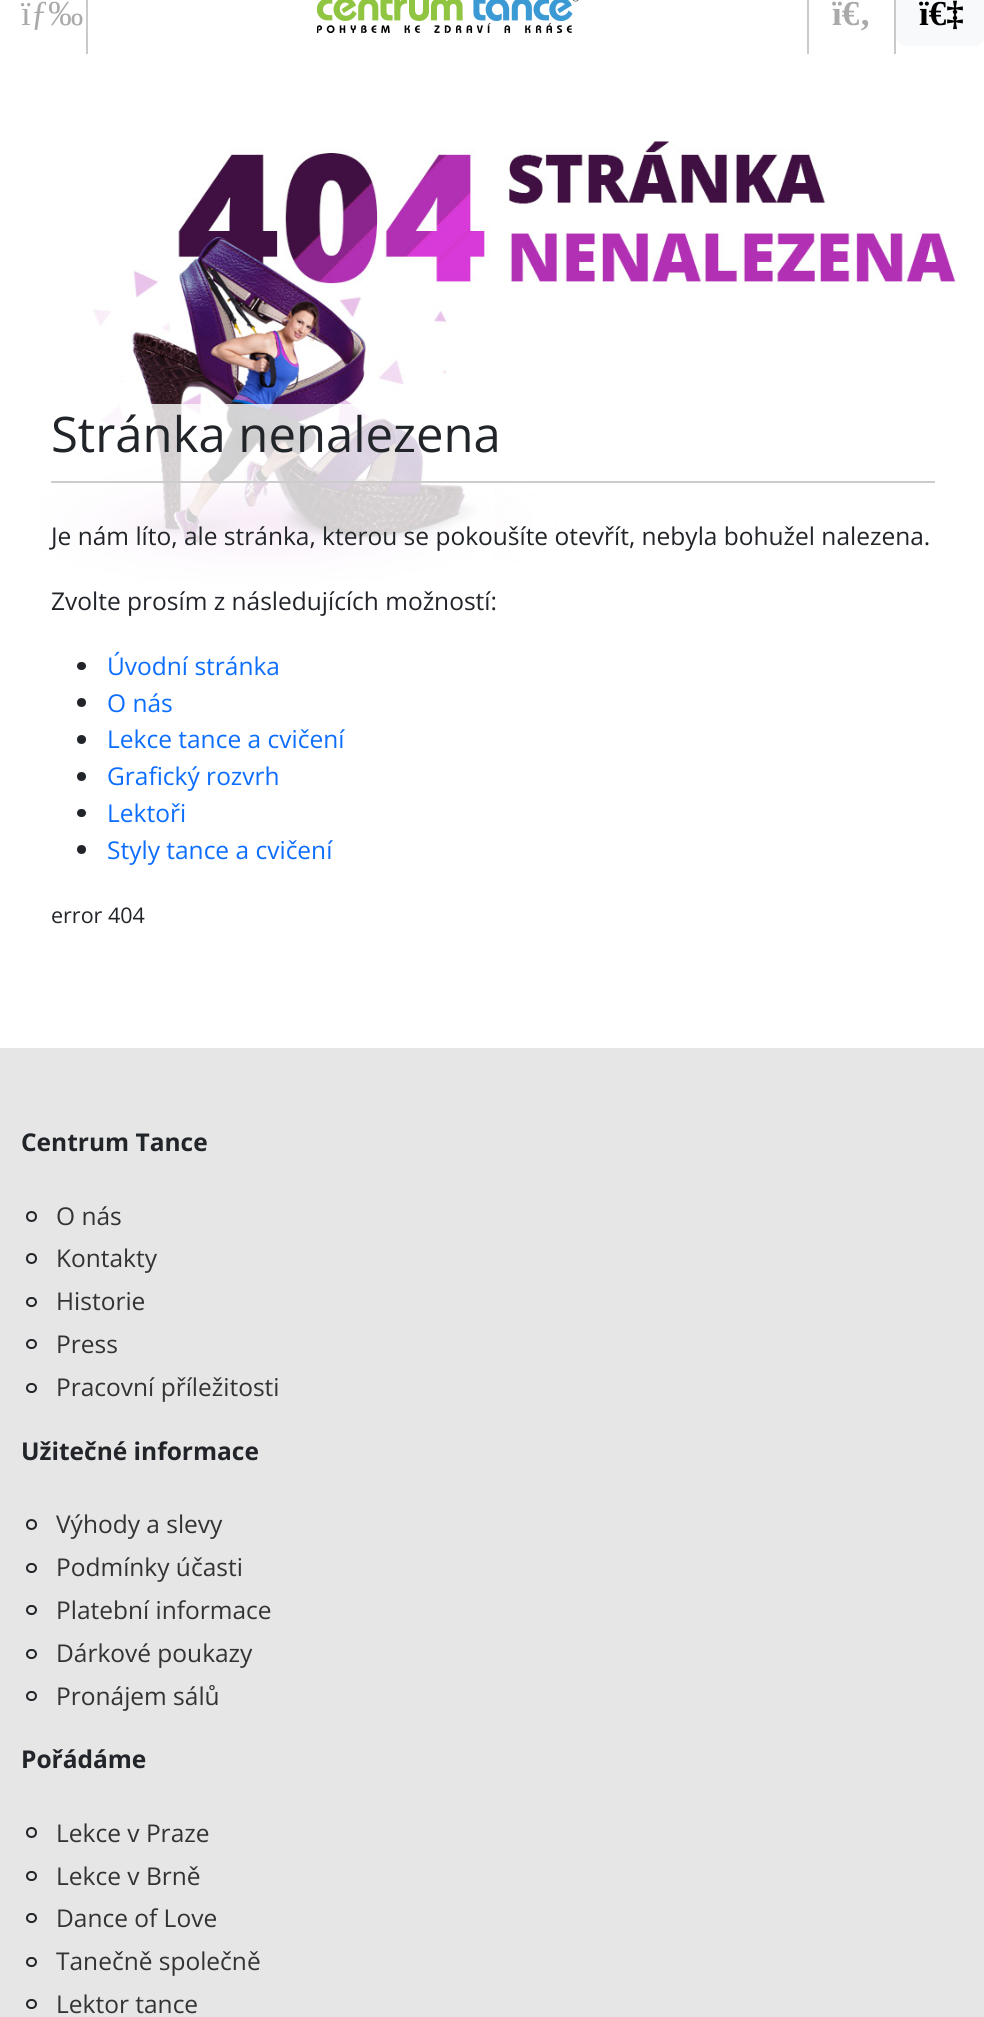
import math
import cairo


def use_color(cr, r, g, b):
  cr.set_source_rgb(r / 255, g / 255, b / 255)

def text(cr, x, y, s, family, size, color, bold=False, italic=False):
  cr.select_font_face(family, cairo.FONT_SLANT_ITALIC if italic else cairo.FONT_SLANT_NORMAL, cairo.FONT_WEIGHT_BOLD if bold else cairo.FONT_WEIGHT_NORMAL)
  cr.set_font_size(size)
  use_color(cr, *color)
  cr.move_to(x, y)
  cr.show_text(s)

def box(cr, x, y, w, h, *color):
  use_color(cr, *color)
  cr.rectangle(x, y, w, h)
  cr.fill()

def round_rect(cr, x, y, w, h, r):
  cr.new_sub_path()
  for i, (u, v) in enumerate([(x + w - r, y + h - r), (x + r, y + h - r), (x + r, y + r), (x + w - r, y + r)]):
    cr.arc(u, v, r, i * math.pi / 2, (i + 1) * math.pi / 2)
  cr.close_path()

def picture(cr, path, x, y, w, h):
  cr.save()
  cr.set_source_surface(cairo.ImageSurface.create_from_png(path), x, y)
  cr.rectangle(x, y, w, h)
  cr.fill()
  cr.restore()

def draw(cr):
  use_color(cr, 255, 255, 255)
  cr.paint()
  box(cr, 86, 0, 2, 54, 203, 201, 202)
  picture(cr, "img_01.png", 317, 0, 262, 33)
  box(cr, 894, 0, 2, 54, 203, 201, 202)
  box(cr, 807, 0, 2, 54, 203, 201, 202)
  use_color(cr, 248, 249, 250)
  round_rect(cr, 896, -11, 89, 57, 11)
  cr.fill()
  picture(cr, "img_02.png", 38, 141, 918, 441)
  cr.set_source_rgba(1, 1, 1, 0.8)
  cr.rectangle(38, 404, 456, 178)
  cr.fill()
  box(cr, 51, 481, 884, 2, 204, 204, 204)
  use_color(cr, 33, 37, 41)
  round_rect(cr, 77, 662, 9, 8, 4)
  cr.fill()
  cr.arc(81.5, 702.5, 4.5, 0, 2 * math.pi)
  cr.fill()
  cr.arc(81.5, 739.5, 4.5, 0, 2 * math.pi)
  cr.fill()
  cr.arc(81.5, 776.5, 4.5, 0, 2 * math.pi)
  cr.fill()
  round_rect(cr, 77, 809, 9, 8, 4)
  cr.fill()
  cr.arc(81.5, 849.5, 4.5, 0, 2 * math.pi)
  cr.fill()
  box(cr, 0, 1048, 984, 969, 230, 230, 230)
  cr.arc(31.5, 1216.5, 4.5, 0, 2 * math.pi)
  use_color(cr, 33, 37, 41)
  cr.stroke()
  cr.arc(31.5, 1258.5, 4.5, 0, 2 * math.pi)
  cr.stroke()
  round_rect(cr, 27, 1298, 9, 8, 4)
  cr.stroke()
  round_rect(cr, 27, 1340, 9, 8, 4)
  cr.stroke()
  round_rect(cr, 27, 1384, 9, 8, 4)
  cr.stroke()
  cr.arc(31.5, 1524.5, 4.5, 0, 2 * math.pi)
  cr.stroke()
  round_rect(cr, 27, 1564, 9, 8, 4)
  cr.stroke()
  round_rect(cr, 27, 1606, 9, 8, 4)
  cr.stroke()
  round_rect(cr, 27, 1650, 9, 8, 4)
  cr.stroke()
  round_rect(cr, 27, 1692, 9, 8, 4)
  cr.stroke()
  cr.arc(31.5, 1832.5, 4.5, 0, 2 * math.pi)
  cr.stroke()
  round_rect(cr, 27, 1872, 9, 8, 4)
  cr.stroke()
  round_rect(cr, 27, 1914, 9, 8, 4)
  cr.stroke()
  round_rect(cr, 27, 1958, 9, 8, 4)
  cr.stroke()
  round_rect(cr, 27, 2000, 9, 8, 4)
  cr.stroke()
  text(cr, 21, 25, "ïƒ‰", "Liberation Serif", 35, (170, 170, 170))
  text(cr, 832, 25, "ï€‚", "Liberation Serif", 35, (170, 170, 170), bold=True)
  text(cr, 919, 25, "ï€‡", "Liberation Serif", 35, (0, 0, 0), bold=True)
  text(cr, 51, 452, "Stránka nenalezena", "Open Sans", 49, (33, 37, 41))
  text(cr, 51, 545, "Je nám líto, ale stránka, kterou se pokoušíte otevřít, nebyla bohužel nalezena.", "Open Sans", 24.5, (33, 37, 41))
  text(cr, 51, 610, "Zvolte prosím z následujících možností:", "Open Sans", 24.5, (33, 37, 41))
  text(cr, 107, 675, "Úvodní stránka", "Open Sans", 24.5, (13, 110, 253))
  text(cr, 107, 712, "O nás", "Open Sans", 24.5, (13, 110, 253))
  text(cr, 107, 748, "Lekce tance a cvičení", "Open Sans", 24.5, (13, 110, 253))
  text(cr, 107, 785, "Grafický rozvrh", "Open Sans", 24.5, (13, 110, 253))
  text(cr, 107, 822, "Lektoři", "Open Sans", 24.5, (13, 110, 253))
  text(cr, 107, 859, "Styly tance a cvičení", "Open Sans", 24.5, (13, 110, 253))
  text(cr, 51, 923, "error 404", "Open Sans", 21.5, (33, 37, 41))
  text(cr, 21, 1151, "Centrum Tance", "Open Sans", 24.5, (33, 37, 41), bold=True)
  text(cr, 56, 1225, "O nás", "Open Sans", 24.5, (51, 51, 51))
  text(cr, 56, 1267, "Kontakty", "Open Sans", 24.5, (51, 51, 51))
  text(cr, 56, 1310, "Historie", "Open Sans", 24.5, (51, 51, 51))
  text(cr, 56, 1353, "Press", "Open Sans", 24.5, (51, 51, 51))
  text(cr, 56, 1396, "Pracovní příležitosti", "Open Sans", 24.5, (51, 51, 51))
  text(cr, 21, 1460, "Užitečné informace", "Open Sans", 24.5, (33, 37, 41), bold=True)
  text(cr, 56, 1533, "Výhody a slevy", "Open Sans", 24.5, (51, 51, 51))
  text(cr, 56, 1576, "Podmínky účasti", "Open Sans", 24.5, (51, 51, 51))
  text(cr, 56, 1619, "Platební informace", "Open Sans", 24.5, (51, 51, 51))
  text(cr, 56, 1662, "Dárkové poukazy", "Open Sans", 24.5, (51, 51, 51))
  text(cr, 56, 1705, "Pronájem sálů", "Open Sans", 24.5, (51, 51, 51))
  text(cr, 21, 1768, "Pořádáme", "Open Sans", 24.5, (33, 37, 41), bold=True)
  text(cr, 56, 1842, "Lekce v Praze", "Open Sans", 24.5, (51, 51, 51))
  text(cr, 56, 1885, "Lekce v Brně", "Open Sans", 24.5, (51, 51, 51))
  text(cr, 56, 1927, "Dance of Love", "Open Sans", 24.5, (51, 51, 51))
  text(cr, 56, 1970, "Tanečně společně", "Open Sans", 24.5, (51, 51, 51))
  text(cr, 56, 2013, "Lektor tance", "Open Sans", 24.5, (51, 51, 51))


surface = cairo.ImageSurface(cairo.FORMAT_RGB24, 984, 2017)
cr = cairo.Context(surface)
options = cairo.FontOptions()
options.set_hint_metrics(cairo.HINT_METRICS_OFF)
options.set_hint_style(cairo.HINT_STYLE_NONE)
cr.set_font_options(options)
cr.set_miter_limit(4)
draw(cr)
surface.write_to_png("out.png")
